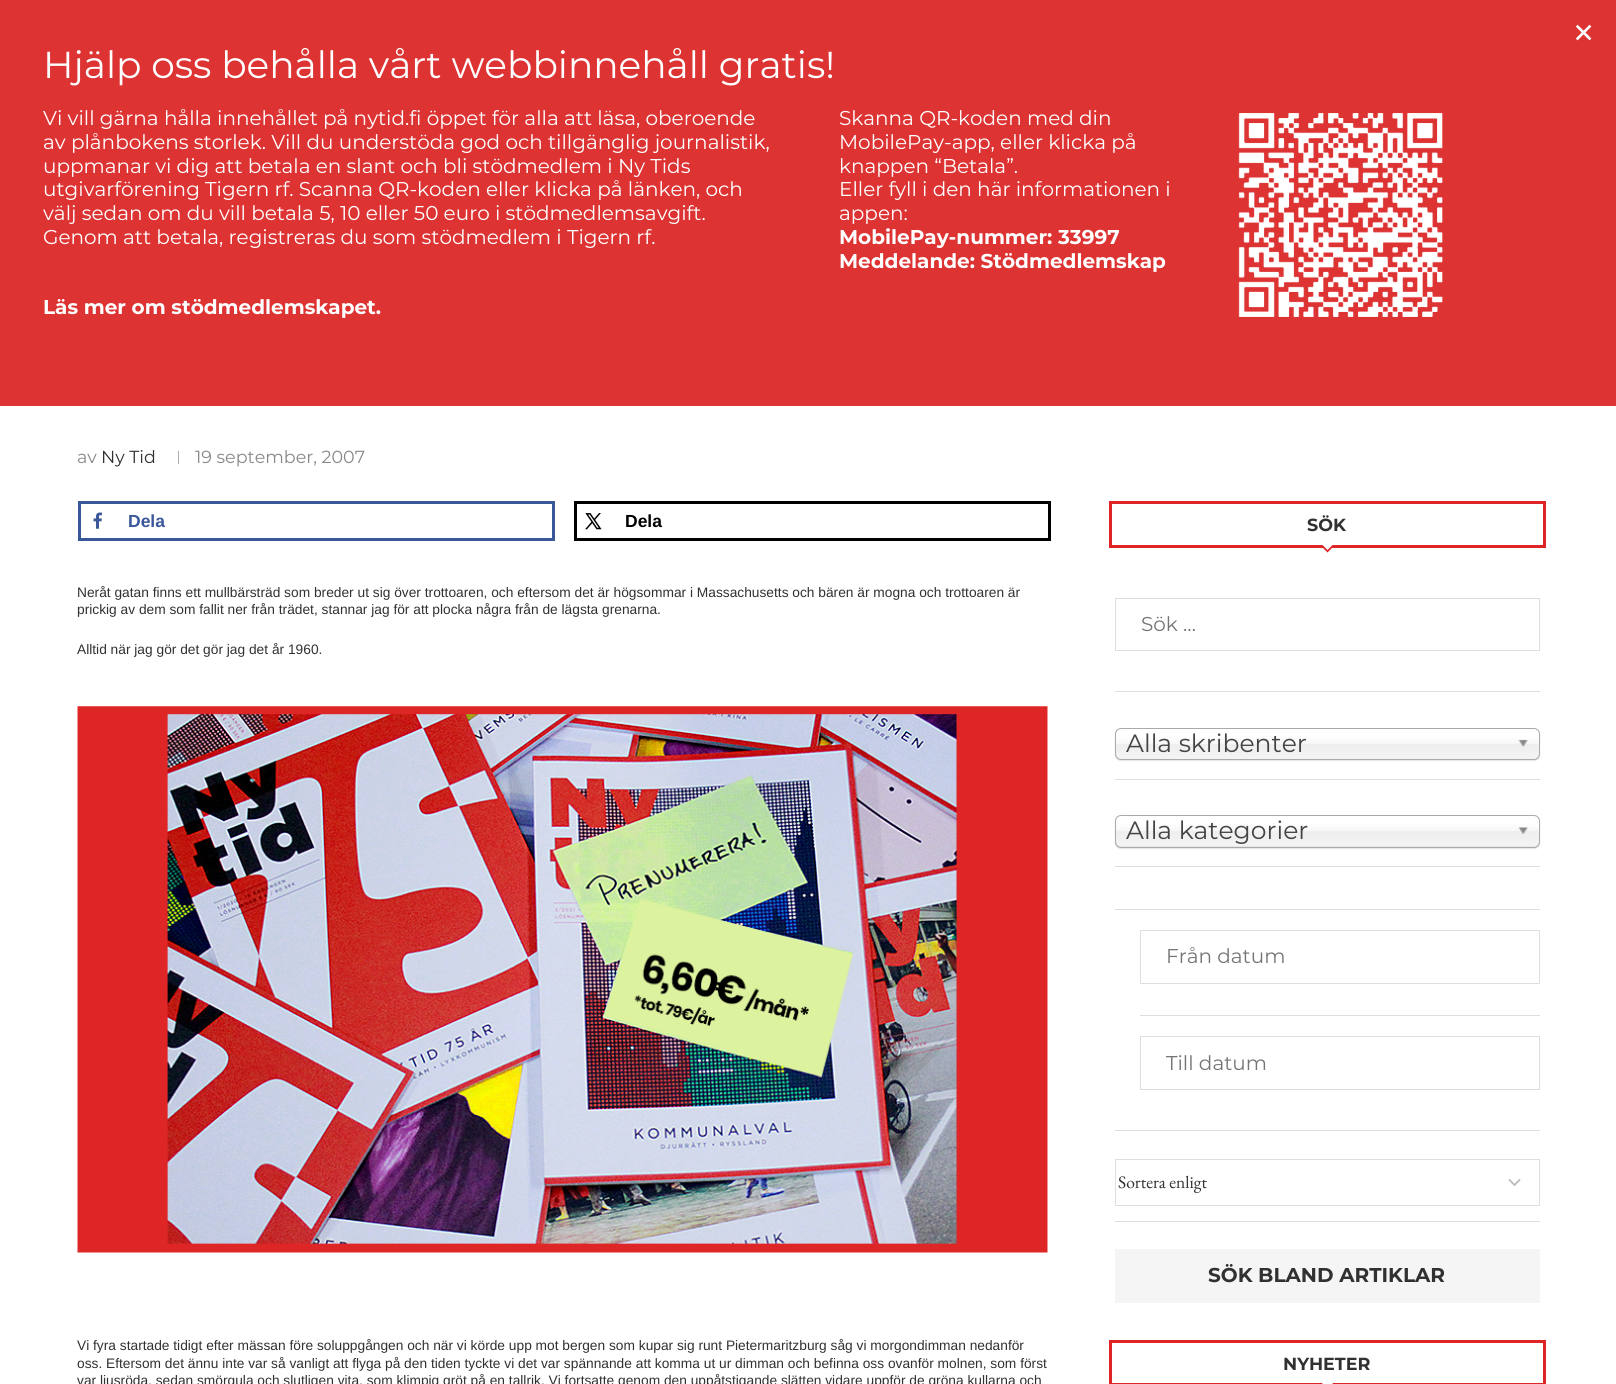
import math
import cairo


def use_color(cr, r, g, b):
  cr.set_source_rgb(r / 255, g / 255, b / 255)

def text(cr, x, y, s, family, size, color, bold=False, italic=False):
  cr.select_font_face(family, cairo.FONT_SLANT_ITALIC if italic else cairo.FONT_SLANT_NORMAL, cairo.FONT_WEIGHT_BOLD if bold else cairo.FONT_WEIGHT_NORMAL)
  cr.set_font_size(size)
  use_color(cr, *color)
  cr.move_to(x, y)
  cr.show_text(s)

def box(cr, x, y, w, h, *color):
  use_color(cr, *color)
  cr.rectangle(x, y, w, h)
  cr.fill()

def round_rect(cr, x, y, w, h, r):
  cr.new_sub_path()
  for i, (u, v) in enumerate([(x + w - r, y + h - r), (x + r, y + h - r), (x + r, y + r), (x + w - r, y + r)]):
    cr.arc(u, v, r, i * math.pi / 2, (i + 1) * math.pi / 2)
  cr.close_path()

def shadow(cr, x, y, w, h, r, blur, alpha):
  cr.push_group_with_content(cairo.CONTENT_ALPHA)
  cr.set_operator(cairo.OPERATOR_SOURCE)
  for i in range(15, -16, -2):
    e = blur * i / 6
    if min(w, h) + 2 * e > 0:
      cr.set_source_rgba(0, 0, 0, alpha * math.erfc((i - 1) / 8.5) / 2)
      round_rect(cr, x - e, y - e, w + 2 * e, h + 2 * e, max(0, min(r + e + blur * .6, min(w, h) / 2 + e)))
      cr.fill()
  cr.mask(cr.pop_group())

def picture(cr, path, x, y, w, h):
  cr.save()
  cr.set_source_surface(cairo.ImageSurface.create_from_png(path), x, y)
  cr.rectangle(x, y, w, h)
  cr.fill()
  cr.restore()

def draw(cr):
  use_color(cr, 255, 255, 255)
  cr.paint()
  box(cr, 0, 0, 1616, 406, 221, 51, 51)
  picture(cr, "img_01.png", 1238, 113, 205, 204)
  box(cr, 178, 451, 1, 13, 172, 172, 172)
  cr.rectangle(79.5, 502.5, 474, 37)
  use_color(cr, 58, 87, 154)
  cr.set_line_width(3)
  cr.stroke()
  picture(cr, "img_02.png", 93, 512, 9, 17)
  cr.rectangle(575.5, 502.5, 474, 37)
  use_color(cr, 0, 0, 0)
  cr.stroke()
  picture(cr, "img_03.png", 585, 513, 17, 17)
  picture(cr, "img_04.png", 77, 706, 971, 547)
  cr.rectangle(1110.5, 502.5, 434, 44)
  use_color(cr, 222, 37, 38)
  cr.stroke()
  cr.new_path()
  cr.move_to(1320, 545)
  cr.line_to(1335, 545)
  cr.line_to(1327.5, 552.5)
  cr.close_path()
  cr.fill()
  use_color(cr, 255, 255, 255)
  cr.new_path()
  cr.move_to(1320, 542.5)
  cr.line_to(1335, 542.5)
  cr.line_to(1327.5, 550)
  cr.close_path()
  cr.fill()
  box(cr, 1115, 691, 425, 1, 222, 222, 222)
  cr.rectangle(1115.5, 598.5, 424, 52)
  cr.set_line_width(1)
  cr.stroke()
  box(cr, 1115, 779, 425, 1, 222, 222, 222)
  use_color(cr, 0, 0, 0)
  shadow(cr, 1115, 729, 425, 32, 6, 0.5, 0.1)
  gradient = cairo.LinearGradient(1328, 729, 1328, 759)
  gradient.add_color_stop_rgba(0.2, 1, 1, 1, 1)
  gradient.add_color_stop_rgba(0.5, 0.965, 0.965, 0.965, 1)
  gradient.add_color_stop_rgba(0.52, 0.933, 0.933, 0.933, 1)
  gradient.add_color_stop_rgba(1, 0.957, 0.957, 0.957, 1)
  cr.set_source(gradient)
  round_rect(cr, 1116, 729, 423, 30, 5)
  cr.fill()
  round_rect(cr, 1115.5, 728.5, 424, 31, 5.5)
  use_color(cr, 170, 170, 170)
  cr.stroke()
  picture(cr, "img_05.png", 1518, 739, 10, 8)
  box(cr, 1115, 866, 425, 1, 222, 222, 222)
  use_color(cr, 0, 0, 0)
  shadow(cr, 1115, 816, 425, 33, 6, 0.5, 0.1)
  gradient = cairo.LinearGradient(1328, 816, 1328, 846)
  gradient.add_color_stop_rgba(0.2, 1, 1, 1, 1)
  gradient.add_color_stop_rgba(0.5, 0.965, 0.965, 0.965, 1)
  gradient.add_color_stop_rgba(0.52, 0.933, 0.933, 0.933, 1)
  gradient.add_color_stop_rgba(1, 0.957, 0.957, 0.957, 1)
  cr.set_source(gradient)
  round_rect(cr, 1116, 816, 423, 30, 5)
  cr.fill()
  round_rect(cr, 1115.5, 815.5, 424, 32, 5.5)
  use_color(cr, 170, 170, 170)
  cr.stroke()
  picture(cr, "img_06.png", 1518, 827, 10, 7)
  box(cr, 1115, 1130, 425, 1, 222, 222, 222)
  box(cr, 1115, 909, 425, 1, 222, 222, 222)
  box(cr, 1140, 1015, 400, 1, 222, 222, 222)
  cr.rectangle(1140.5, 930.5, 399, 53)
  cr.stroke()
  cr.rectangle(1140.5, 1036.5, 399, 53)
  cr.stroke()
  box(cr, 1115, 1221, 425, 1, 222, 222, 222)
  cr.new_path()
  cr.move_to(1509, 1179.5)
  cr.line_to(1514.5, 1185)
  cr.line_to(1520, 1179.5)
  use_color(cr, 187, 187, 187)
  cr.set_line_width(1.8)
  cr.stroke()
  cr.rectangle(1115.5, 1159.5, 424, 46)
  use_color(cr, 222, 222, 222)
  cr.set_line_width(1)
  cr.stroke()
  box(cr, 1115, 1249, 425, 54, 245, 245, 245)
  cr.rectangle(1110.5, 1341.5, 434, 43)
  use_color(cr, 222, 37, 38)
  cr.set_line_width(3)
  cr.stroke()
  use_color(cr, 255, 255, 255)
  cr.new_path()
  cr.move_to(1320, 1381)
  cr.line_to(1335, 1381)
  cr.line_to(1327.5, 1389)
  cr.close_path()
  cr.fill()
  text(cr, 1573, 45, "×", "Liberation Serif", 37.5, (255, 255, 255), bold=True)
  text(cr, 43, 78, "Hjälp oss behålla vårt webbinnehåll gratis!", "Montserrat", 37.5, (255, 255, 255))
  text(cr, 43, 125, "Vi vill gärna hålla innehållet på nytid.fi öppet för alla att läsa, oberoende", "Montserrat", 20, (255, 255, 255))
  text(cr, 43, 149, "av plånbokens storlek. Vill du understöda god och tillgänglig journalistik,", "Montserrat", 20, (255, 255, 255))
  text(cr, 43, 173, "uppmanar vi dig att betala en slant och bli stödmedlem i Ny Tids", "Montserrat", 20, (255, 255, 255))
  text(cr, 43, 196, "utgivarförening Tigern rf. Scanna QR-koden eller klicka på länken, och", "Montserrat", 20, (255, 255, 255))
  text(cr, 43, 220, "välj sedan om du vill betala 5, 10 eller 50 euro i stödmedlemsavgift.", "Montserrat", 20, (255, 255, 255))
  text(cr, 43, 244, "Genom att betala, registreras du som stödmedlem i Tigern rf.", "Montserrat", 20, (255, 255, 255))
  text(cr, 43, 314, "Läs mer om stödmedlemskapet.", "Montserrat", 20, (255, 255, 255), bold=True)
  text(cr, 839, 125, "Skanna QR-koden med din", "Montserrat", 20, (255, 255, 255))
  text(cr, 839, 149, "MobilePay-app, eller klicka på", "Montserrat", 20, (255, 255, 255))
  text(cr, 839, 173, "knappen “Betala”.", "Montserrat", 20, (255, 255, 255))
  text(cr, 839, 196, "Eller fyll i den här informationen i", "Montserrat", 20, (255, 255, 255))
  text(cr, 839, 220, "appen:", "Montserrat", 20, (255, 255, 255))
  text(cr, 839, 244, "MobilePay-nummer: 33997", "Montserrat", 20, (255, 255, 255), bold=True)
  text(cr, 839, 268, "Meddelande: Stödmedlemskap", "Montserrat", 20, (255, 255, 255), bold=True)
  text(cr, 77, 463, "av", "Montserrat", 17.5, (136, 136, 136))
  text(cr, 101, 463, "Ny Tid", "Montserrat", 17.5, (49, 49, 49))
  text(cr, 195, 463, "19 september, 2007", "Montserrat", 17.5, (136, 136, 136))
  text(cr, 128, 527, "Dela", "Liberation Sans", 17.5, (58, 87, 154), bold=True)
  text(cr, 625, 527, "Dela", "Liberation Sans", 17.5, (0, 0, 0), bold=True)
  text(cr, 77, 597, "Neråt gatan finns ett mullbärsträd som breder ut sig över trottoaren, och eftersom det är högsommar i Massachusetts och bären är mogna och trottoaren är", "Liberation Sans", 13.75, (49, 49, 49))
  text(cr, 77, 614, "prickig av dem som fallit ner från trädet, stannar jag för att plocka några från de lägsta grenarna.", "Liberation Sans", 13.75, (49, 49, 49))
  text(cr, 77, 654, "Alltid när jag gör det gör jag det år 1960.", "Liberation Sans", 13.75, (49, 49, 49))
  text(cr, 77, 1350, "Vi fyra startade tidigt efter mässan före soluppgången och när vi körde upp mot bergen som kupar sig runt Pietermaritzburg såg vi morgondimman nedanför", "Liberation Sans", 13.75, (49, 49, 49))
  text(cr, 77, 1368, "oss. Eftersom det ännu inte var så vanligt att flyga på den tiden tyckte vi det var spännande att komma ut ur dimman och befinna oss ovanför molnen, som först", "Liberation Sans", 13.75, (49, 49, 49))
  text(cr, 77, 1385, "var ljusröda, sedan smörgula och slutligen vita, som klimpig gröt på en tallrik. Vi fortsatte genom den uppåtstigande slätten vidare uppför de gröna kullarna och", "Liberation Sans", 13.75, (49, 49, 49))
  text(cr, 1307, 531, "SÖK", "Montserrat", 17.5, (49, 49, 49), bold=True)
  text(cr, 1141, 631, "Sök …", "Montserrat", 20, (117, 117, 117))
  text(cr, 1126, 752, "Alla skribenter", "Montserrat", 25, (68, 68, 68))
  text(cr, 1126, 839, "Alla kategorier", "Montserrat", 25, (68, 68, 68))
  text(cr, 1166, 963, "Från datum", "Montserrat", 20, (117, 117, 117))
  text(cr, 1166, 1070, "Till datum", "Montserrat", 20, (117, 117, 117))
  text(cr, 1118, 1188, "Sortera enligt", "EB Garamond", 17.5, (49, 49, 49))
  text(cr, 1208, 1282, "SÖK BLAND ARTIKLAR", "Montserrat", 20, (49, 49, 49), bold=True)
  text(cr, 1283, 1370, "NYHETER", "Montserrat", 17.5, (49, 49, 49), bold=True)


surface = cairo.ImageSurface(cairo.FORMAT_RGB24, 1616, 1384)
cr = cairo.Context(surface)
options = cairo.FontOptions()
options.set_hint_metrics(cairo.HINT_METRICS_OFF)
options.set_hint_style(cairo.HINT_STYLE_NONE)
cr.set_font_options(options)
cr.set_miter_limit(4)
draw(cr)
surface.write_to_png("out.png")
